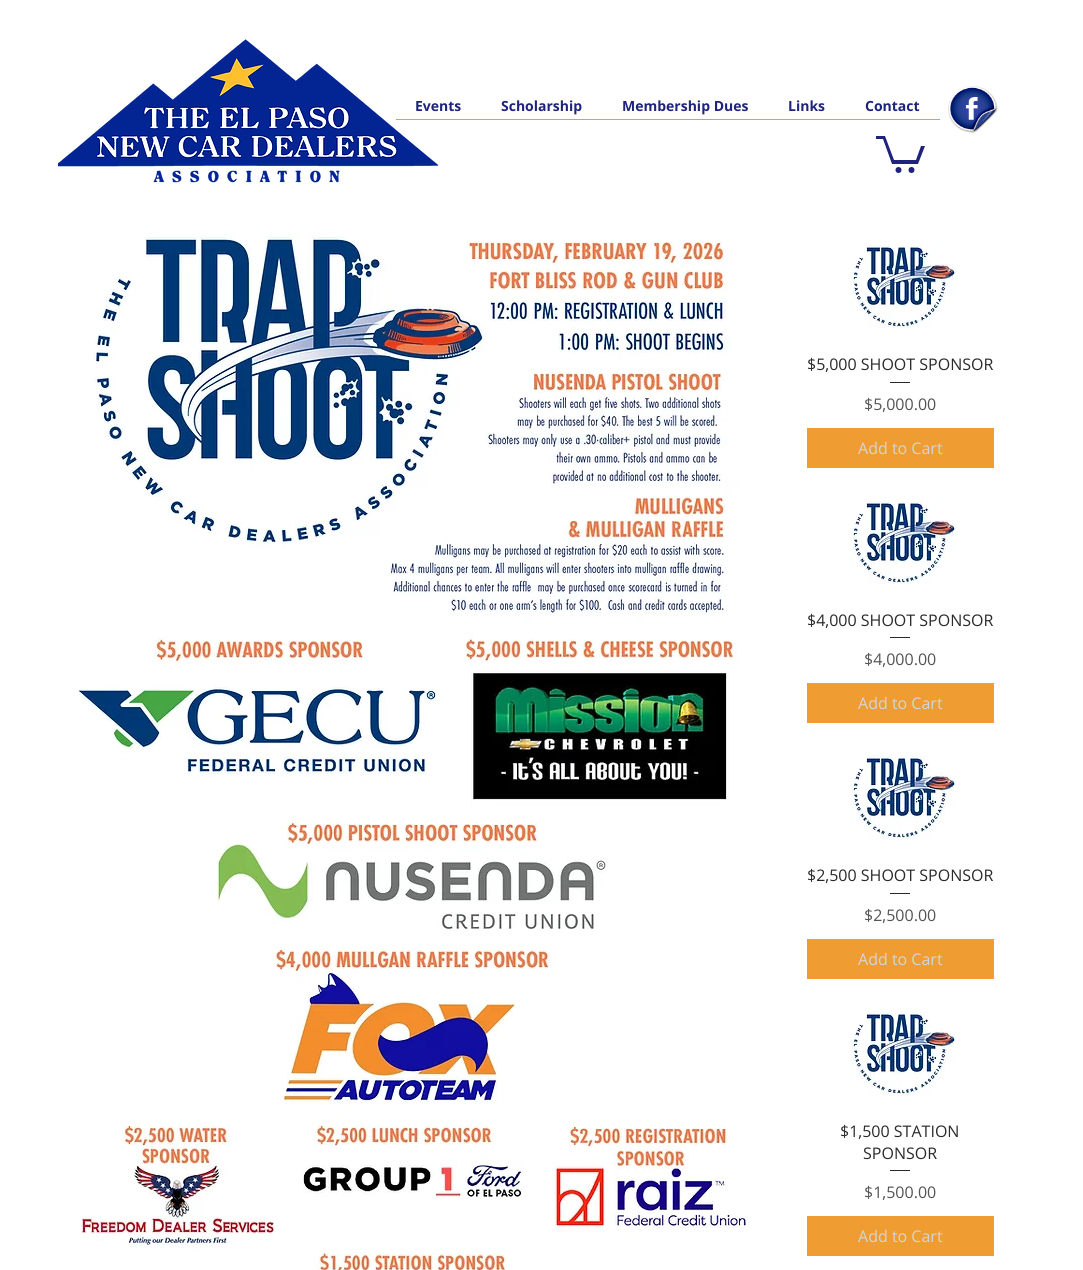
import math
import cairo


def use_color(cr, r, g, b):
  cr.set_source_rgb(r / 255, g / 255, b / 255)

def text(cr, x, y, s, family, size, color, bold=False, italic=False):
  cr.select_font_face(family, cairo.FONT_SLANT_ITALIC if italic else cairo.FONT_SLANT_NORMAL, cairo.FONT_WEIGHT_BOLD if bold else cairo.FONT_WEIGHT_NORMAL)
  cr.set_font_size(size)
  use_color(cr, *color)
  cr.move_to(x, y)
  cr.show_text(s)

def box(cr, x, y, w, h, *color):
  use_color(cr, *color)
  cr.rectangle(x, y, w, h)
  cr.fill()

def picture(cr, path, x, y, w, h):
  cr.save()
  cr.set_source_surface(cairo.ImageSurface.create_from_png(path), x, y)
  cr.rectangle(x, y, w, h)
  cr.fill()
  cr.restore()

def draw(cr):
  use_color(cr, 255, 255, 255)
  cr.paint()
  picture(cr, "img_01.png", 58, 39, 380, 144)
  box(cr, 396, 119, 544, 1, 239, 157, 51)
  picture(cr, "img_02.png", 948, 86, 50, 47)
  use_color(cr, 30, 35, 124)
  cr.new_path()
  cr.move_to(925, 146)
  cr.line_to(918, 164)
  cr.line_to(892, 164)
  cr.line_to(883, 139)
  cr.line_to(876, 139)
  cr.line_to(876, 136)
  cr.line_to(885, 136)
  cr.line_to(894, 160)
  cr.line_to(916, 160)
  cr.line_to(921, 146)
  cr.fill()
  cr.arc(911.5, 170, 3, 0, 2 * math.pi)
  cr.fill()
  cr.arc(898.5, 170, 3, 0, 2 * math.pi)
  cr.fill()
  picture(cr, "img_03.png", 78, 233, 668, 1037)
  picture(cr, "img_04.png", 850, 244, 105, 84)
  box(cr, 890, 382, 20, 1, 42, 42, 42)
  box(cr, 807, 428, 187, 40, 239, 157, 51)
  picture(cr, "img_04.png", 850, 500, 105, 84)
  box(cr, 890, 637, 20, 1, 42, 42, 42)
  box(cr, 807, 683, 187, 40, 239, 157, 51)
  picture(cr, "img_04.png", 850, 755, 105, 84)
  box(cr, 890, 893, 20, 1, 42, 42, 42)
  box(cr, 807, 939, 187, 40, 239, 157, 51)
  picture(cr, "img_04.png", 850, 1011, 105, 84)
  box(cr, 890, 1170, 20, 1, 42, 42, 42)
  box(cr, 807, 1216, 187, 40, 239, 157, 51)
  text(cr, 415, 111, "Events", "Open Sans", 14, (30, 35, 124), bold=True)
  text(cr, 501, 111, "Scholarship", "Open Sans", 14, (30, 35, 124), bold=True)
  text(cr, 622, 111, "Membership Dues", "Open Sans", 14, (30, 35, 124), bold=True)
  text(cr, 788, 111, "Links", "Open Sans", 14, (30, 35, 124), bold=True)
  text(cr, 865, 111, "Contact", "Open Sans", 14, (30, 35, 124), bold=True)
  text(cr, 807, 370, "$5,000 SHOOT SPONSOR", "Open Sans", 16, (42, 42, 42))
  text(cr, 864, 410, "$5,000.00", "Open Sans", 16, (84, 84, 84))
  text(cr, 858, 454, "Add to Cart", "Open Sans", 16, (212, 212, 212))
  text(cr, 807, 626, "$4,000 SHOOT SPONSOR", "Open Sans", 16, (42, 42, 42))
  text(cr, 864, 665, "$4,000.00", "Open Sans", 16, (84, 84, 84))
  text(cr, 858, 709, "Add to Cart", "Open Sans", 16, (212, 212, 212))
  text(cr, 807, 881, "$2,500 SHOOT SPONSOR", "Open Sans", 16, (42, 42, 42))
  text(cr, 864, 921, "$2,500.00", "Open Sans", 16, (84, 84, 84))
  text(cr, 858, 965, "Add to Cart", "Open Sans", 16, (212, 212, 212))
  text(cr, 840, 1137, "$1,500 STATION", "Open Sans", 16, (42, 42, 42))
  text(cr, 863, 1159, "SPONSOR", "Open Sans", 16, (42, 42, 42))
  text(cr, 864, 1198, "$1,500.00", "Open Sans", 16, (84, 84, 84))
  text(cr, 858, 1242, "Add to Cart", "Open Sans", 16, (212, 212, 212))


surface = cairo.ImageSurface(cairo.FORMAT_RGB24, 1083, 1270)
cr = cairo.Context(surface)
options = cairo.FontOptions()
options.set_hint_metrics(cairo.HINT_METRICS_OFF)
options.set_hint_style(cairo.HINT_STYLE_NONE)
cr.set_font_options(options)
cr.set_miter_limit(4)
draw(cr)
surface.write_to_png("out.png")
